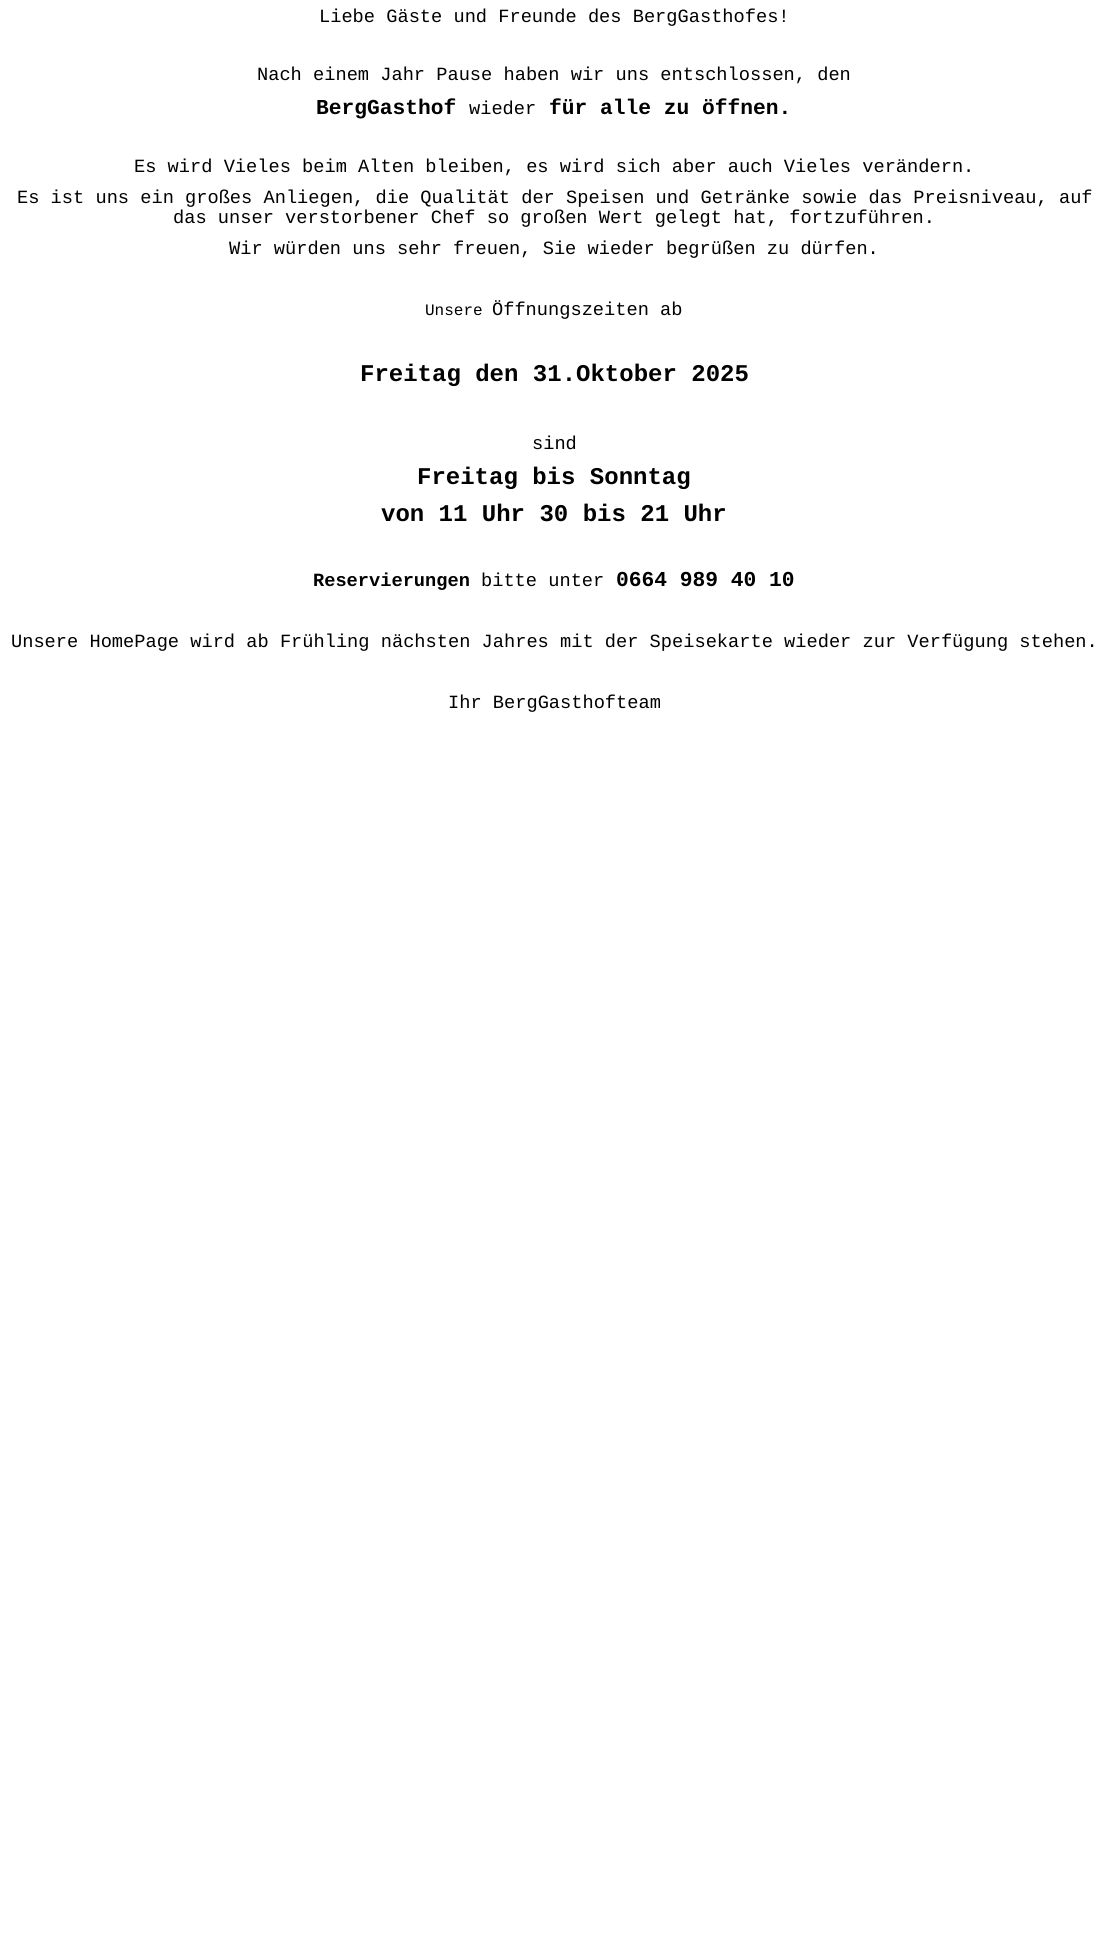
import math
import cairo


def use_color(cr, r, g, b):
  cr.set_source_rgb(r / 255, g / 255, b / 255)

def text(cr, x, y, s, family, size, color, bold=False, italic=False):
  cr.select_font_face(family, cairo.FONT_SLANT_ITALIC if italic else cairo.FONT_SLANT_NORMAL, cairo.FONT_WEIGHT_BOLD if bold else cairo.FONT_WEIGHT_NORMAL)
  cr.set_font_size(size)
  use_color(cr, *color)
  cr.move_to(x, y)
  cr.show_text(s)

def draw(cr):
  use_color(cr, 255, 255, 255)
  cr.paint()
  text(cr, 319, 22, "Liebe Gäste und Freunde des BergGasthofes!", "Liberation Mono", 18.67, (0, 0, 0))
  text(cr, 257, 80, "Nach einem Jahr Pause haben wir uns entschlossen, den", "Liberation Mono", 18.67, (0, 0, 0))
  text(cr, 316, 114, "BergGasthof", "Liberation Mono", 21.25, (0, 0, 0), bold=True)
  text(cr, 469, 114, "wieder", "Liberation Mono", 18.67, (0, 0, 0))
  text(cr, 549, 114, "für alle zu öffnen.", "Liberation Mono", 21.25, (0, 0, 0), bold=True)
  text(cr, 134, 172, "Es wird Vieles beim Alten bleiben, es wird sich aber auch Vieles verändern.", "Liberation Mono", 18.67, (0, 0, 0))
  text(cr, 17, 203, "Es ist uns ein großes Anliegen, die Qualität der Speisen und Getränke sowie das Preisniveau, auf", "Liberation Mono", 18.67, (0, 0, 0))
  text(cr, 173, 223, "das unser verstorbener Chef so großen Wert gelegt hat, fortzuführen.", "Liberation Mono", 18.67, (0, 0, 0))
  text(cr, 229, 254, "Wir würden uns sehr freuen, Sie wieder begrüßen zu dürfen.", "Liberation Mono", 18.67, (0, 0, 0))
  text(cr, 425, 315, "Unsere", "Liberation Mono", 16, (0, 0, 0))
  text(cr, 492, 315, "Öffnungszeiten ab", "Liberation Mono", 18.67, (0, 0, 0))
  text(cr, 360, 381, "Freitag den 31.Oktober 2025", "Liberation Mono", 24, (0, 0, 0), bold=True)
  text(cr, 532, 449, "sind", "Liberation Mono", 18.67, (0, 0, 0))
  text(cr, 417, 484, "Freitag bis Sonntag", "Liberation Mono", 24, (0, 0, 0), bold=True)
  text(cr, 381, 521, "von 11 Uhr 30 bis 21 Uhr", "Liberation Mono", 24, (0, 0, 0), bold=True)
  text(cr, 313, 586, "Reservierungen", "Liberation Mono", 18.67, (0, 0, 0), bold=True)
  text(cr, 481, 586, "bitte unter", "Liberation Mono", 18.67, (0, 0, 0))
  text(cr, 616, 586, "0664 989 40 10", "Liberation Mono", 21.25, (0, 0, 0), bold=True)
  text(cr, 11, 647, "Unsere HomePage wird ab Frühling nächsten Jahres mit der Speisekarte wieder zur Verfügung stehen.", "Liberation Mono", 18.67, (0, 0, 0))
  text(cr, 448, 708, "Ihr BergGasthofteam", "Liberation Mono", 18.67, (0, 0, 0))


surface = cairo.ImageSurface(cairo.FORMAT_RGB24, 1108, 1941)
cr = cairo.Context(surface)
options = cairo.FontOptions()
options.set_hint_metrics(cairo.HINT_METRICS_OFF)
options.set_hint_style(cairo.HINT_STYLE_NONE)
cr.set_font_options(options)
cr.set_miter_limit(4)
draw(cr)
surface.write_to_png("out.png")
